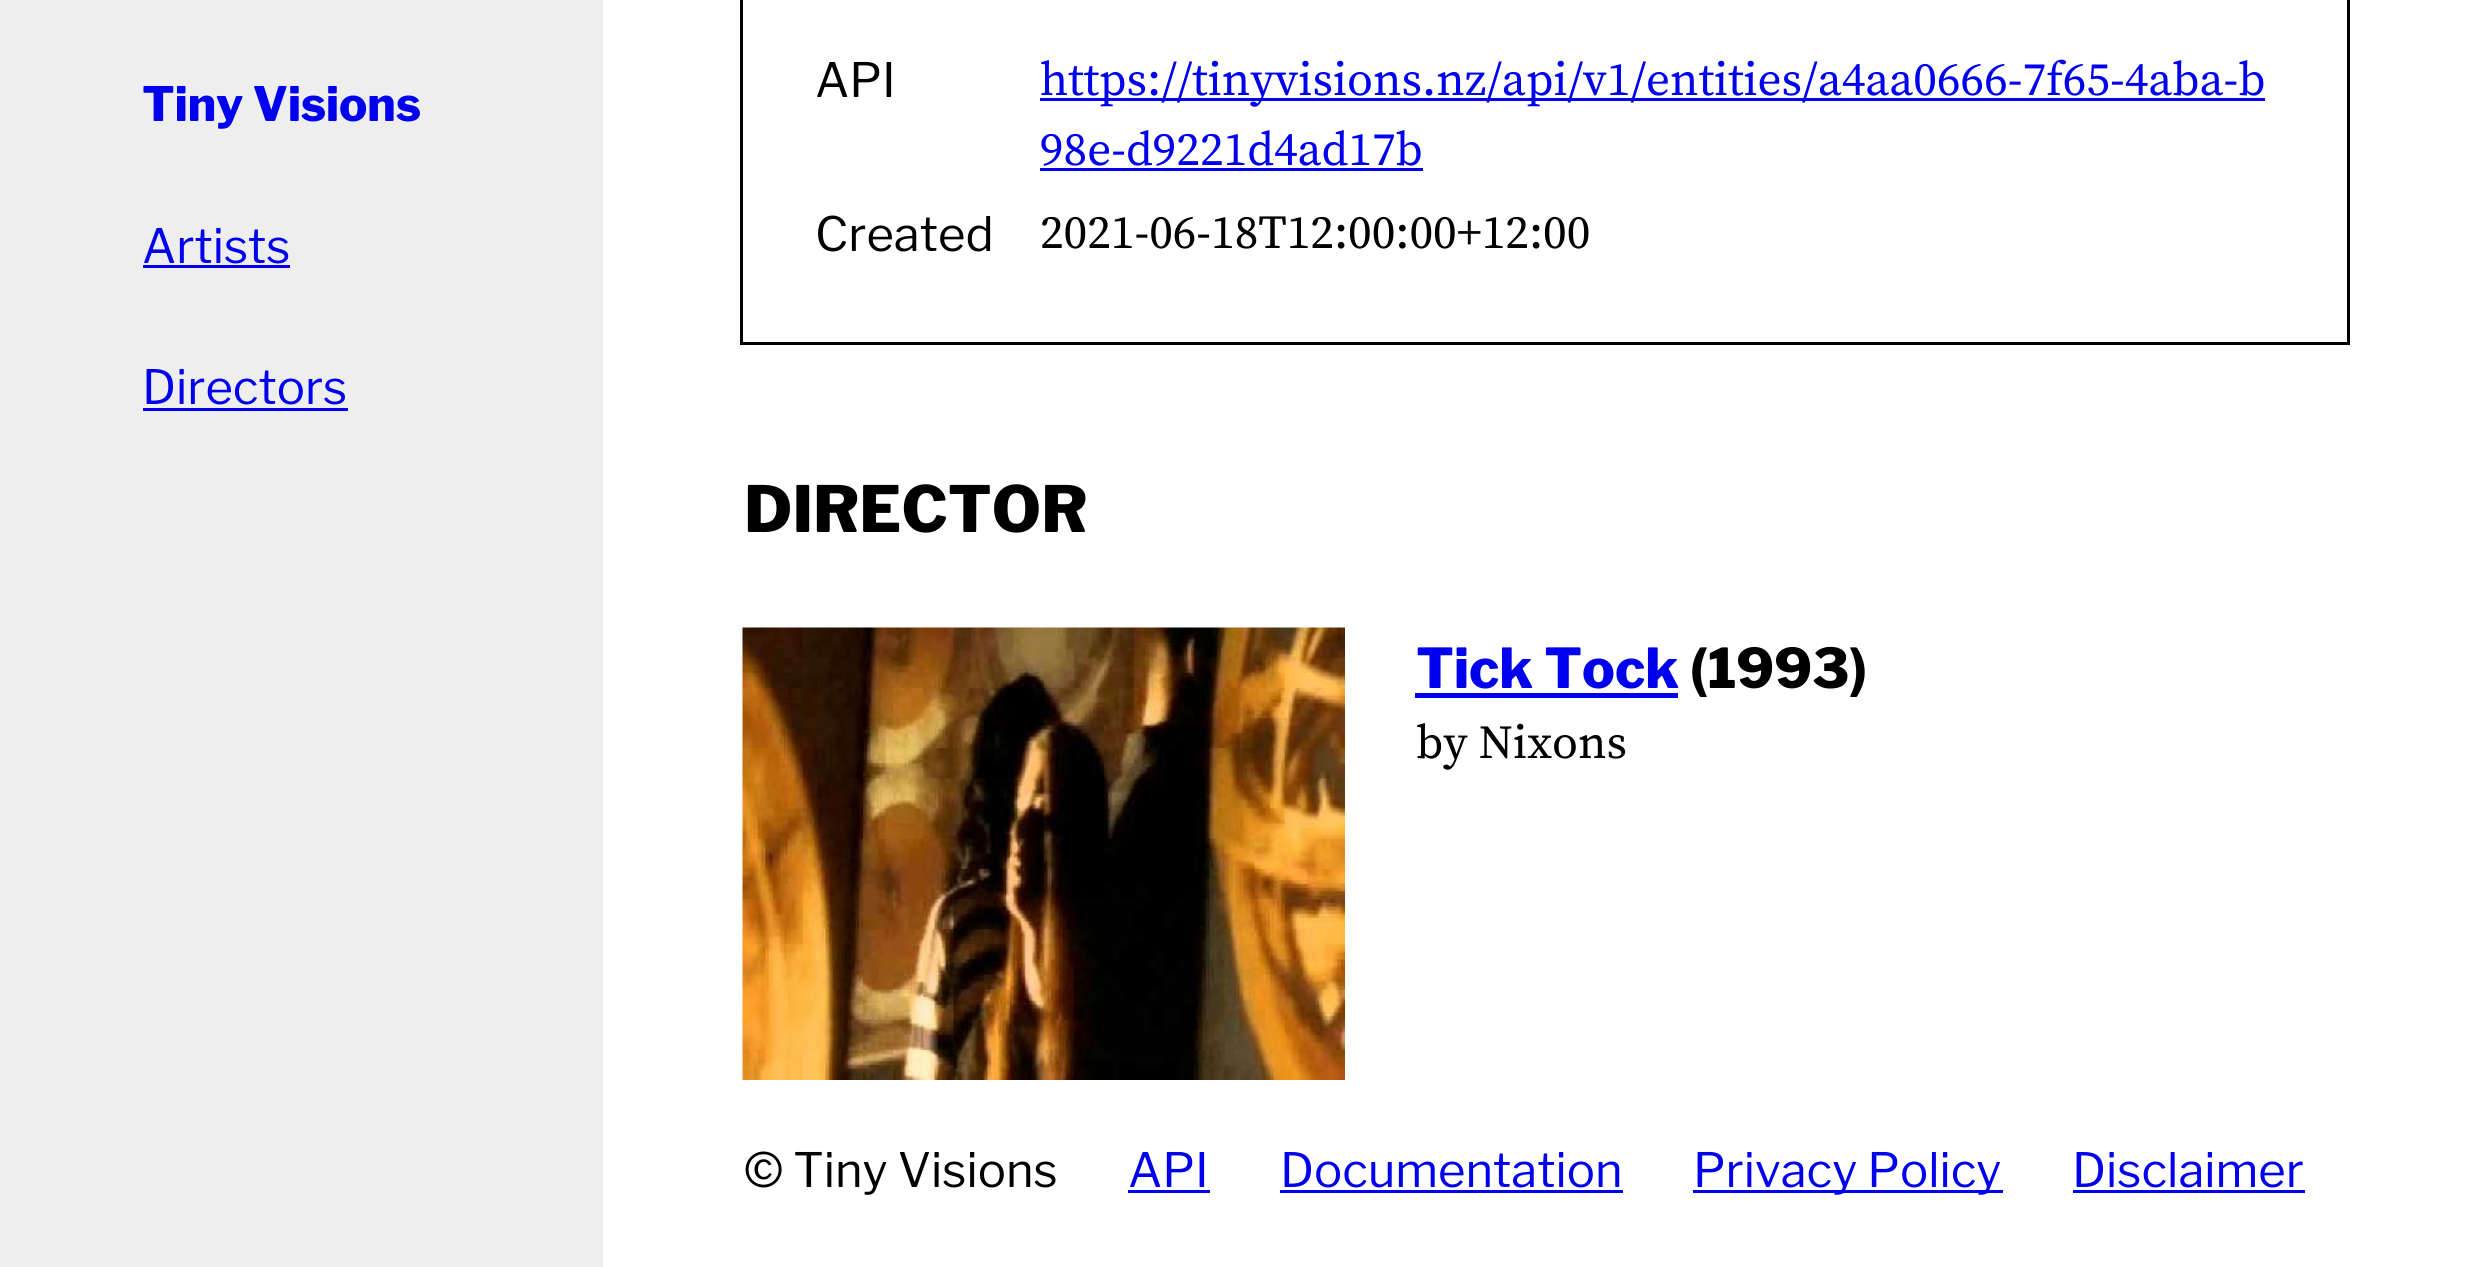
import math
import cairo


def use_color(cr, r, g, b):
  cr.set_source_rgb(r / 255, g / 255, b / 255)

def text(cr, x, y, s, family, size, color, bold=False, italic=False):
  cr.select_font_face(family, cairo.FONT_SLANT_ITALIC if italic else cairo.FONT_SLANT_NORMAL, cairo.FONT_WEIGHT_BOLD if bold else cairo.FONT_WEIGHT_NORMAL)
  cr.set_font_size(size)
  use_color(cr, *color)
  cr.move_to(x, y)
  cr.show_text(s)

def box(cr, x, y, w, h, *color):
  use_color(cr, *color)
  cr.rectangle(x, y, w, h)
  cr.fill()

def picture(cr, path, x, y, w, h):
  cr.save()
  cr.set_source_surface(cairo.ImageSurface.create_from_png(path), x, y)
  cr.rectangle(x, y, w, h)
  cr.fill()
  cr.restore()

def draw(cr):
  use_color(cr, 255, 255, 255)
  cr.paint()
  box(cr, 0, 0, 603, 1267, 238, 238, 238)
  box(cr, 143, 265, 147, 3, 0, 0, 238)
  box(cr, 143, 408, 205, 3, 0, 0, 238)
  cr.rectangle(741.5, -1.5, 1607, 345)
  use_color(cr, 0, 0, 0)
  cr.set_line_width(3)
  cr.stroke()
  box(cr, 1040, 98, 1225, 3, 0, 0, 238)
  box(cr, 1040, 168, 383, 3, 0, 0, 238)
  picture(cr, "img_01.png", 742, 627, 603, 453)
  box(cr, 1415, 693, 263, 5, 0, 0, 238)
  box(cr, 1128, 1190, 82, 3, 0, 0, 238)
  box(cr, 1280, 1190, 343, 3, 0, 0, 238)
  box(cr, 1693, 1190, 310, 3, 0, 0, 238)
  box(cr, 2073, 1190, 232, 3, 0, 0, 238)
  text(cr, 142, 121, "Tiny Visions", "Libre Franklin Thin", 47.2, (0, 0, 238))
  text(cr, 142, 263, "Artists", "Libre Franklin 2 Thin", 47.2, (0, 0, 238))
  text(cr, 142, 404, "Directors", "Libre Franklin 2 Thin", 47.2, (0, 0, 238))
  text(cr, 815, 97, "API", "Libre Franklin 2 Thin", 47.2, (0, 0, 0))
  text(cr, 1040, 95, "https://tinyvisions.nz/api/v1/entities/a4aa0666-7f65-4aba-b", "Source Serif Pro", 47.2, (0, 0, 238))
  text(cr, 1040, 165, "98e-d9221d4ad17b", "Source Serif Pro", 47.2, (0, 0, 238))
  text(cr, 815, 251, "Created", "Libre Franklin 2 Thin", 47.2, (0, 0, 0))
  text(cr, 1040, 248, "2021-06-18T12:00:00+12:00", "Source Serif Pro", 47.2, (0, 0, 0))
  text(cr, 744, 532, "DIRECTOR", "Libre Franklin Thin", 63.5, (0, 0, 0))
  text(cr, 1416, 688, "Tick Tock", "Libre Franklin Thin", 54.75, (0, 0, 238))
  text(cr, 1690, 688, "(1993)", "Libre Franklin Thin", 54.75, (0, 0, 0))
  text(cr, 1416, 758, "by Nixons", "Source Serif Pro", 47.2, (0, 0, 0))
  text(cr, 744, 1187, "© Tiny Visions", "Libre Franklin 2 Thin", 47.2, (0, 0, 0))
  text(cr, 1128, 1187, "API", "Libre Franklin 2 Thin", 47.2, (0, 0, 238))
  text(cr, 1280, 1187, "Documentation", "Libre Franklin 2 Thin", 47.2, (0, 0, 238))
  text(cr, 1693, 1187, "Privacy Policy", "Libre Franklin 2 Thin", 47.2, (0, 0, 238))
  text(cr, 2072, 1187, "Disclaimer", "Libre Franklin 2 Thin", 47.2, (0, 0, 238))


surface = cairo.ImageSurface(cairo.FORMAT_RGB24, 2490, 1267)
cr = cairo.Context(surface)
options = cairo.FontOptions()
options.set_hint_metrics(cairo.HINT_METRICS_OFF)
options.set_hint_style(cairo.HINT_STYLE_NONE)
cr.set_font_options(options)
cr.set_miter_limit(4)
draw(cr)
surface.write_to_png("out.png")
